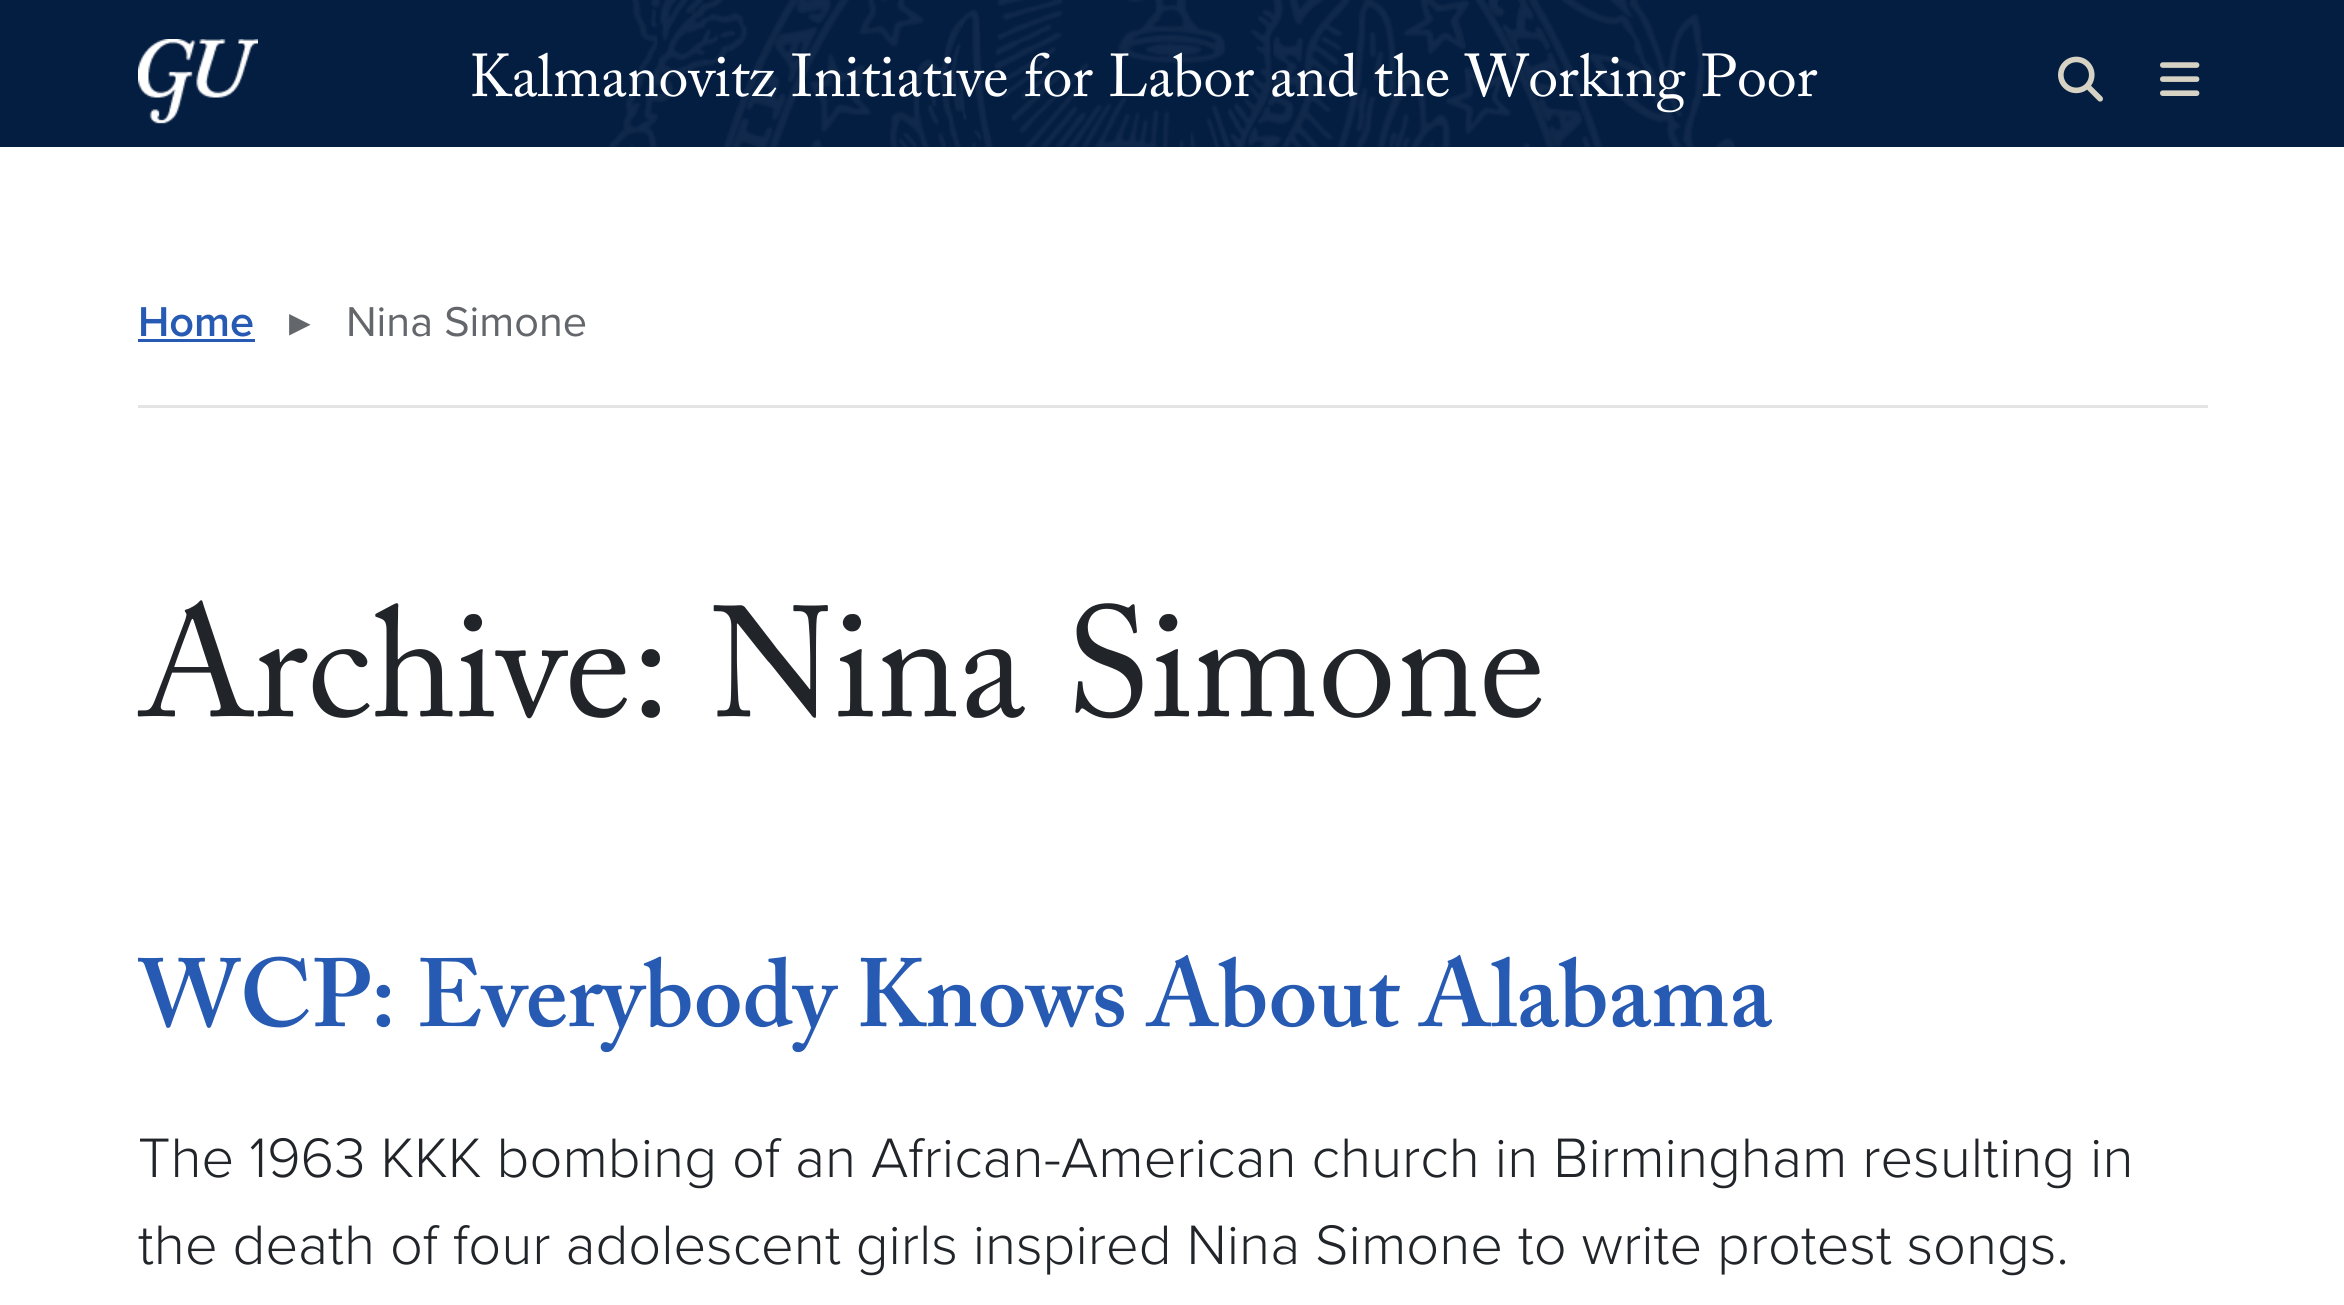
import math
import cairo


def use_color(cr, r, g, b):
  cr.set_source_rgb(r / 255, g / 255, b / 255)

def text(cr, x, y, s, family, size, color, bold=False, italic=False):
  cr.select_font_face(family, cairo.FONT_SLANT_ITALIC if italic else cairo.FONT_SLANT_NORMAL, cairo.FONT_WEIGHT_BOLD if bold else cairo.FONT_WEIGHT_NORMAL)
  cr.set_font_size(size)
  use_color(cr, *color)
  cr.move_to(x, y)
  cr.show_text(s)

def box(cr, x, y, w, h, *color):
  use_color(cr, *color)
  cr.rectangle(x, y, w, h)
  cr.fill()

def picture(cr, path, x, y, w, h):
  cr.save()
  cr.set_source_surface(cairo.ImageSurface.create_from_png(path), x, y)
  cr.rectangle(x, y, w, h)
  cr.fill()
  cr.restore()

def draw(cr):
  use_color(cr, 255, 255, 255)
  cr.paint()
  box(cr, 0, 0, 2344, 147, 4, 30, 66)
  picture(cr, "img_01.png", 609, 0, 1126, 147)
  picture(cr, "img_02.png", 138, 39, 120, 85)
  picture(cr, "img_03.png", 2058, 56, 45, 46)
  picture(cr, "img_04.png", 2160, 62, 40, 34)
  box(cr, 138, 405, 2070, 3, 228, 228, 228)
  box(cr, 138, 339, 117, 3, 38, 90, 179)
  text(cr, 469, 96, "Kalmanovitz Initiative for Labor and the Working Poor", "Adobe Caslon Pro", 60, (255, 255, 255))
  text(cr, 138, 336, "Home", "Proxima Nova SemiBold", 43.25, (38, 90, 179))
  text(cr, 289, 336, "▸", "DejaVu Sans", 43.25, (99, 102, 106))
  text(cr, 346, 336, "Nina Simone", "Proxima Nova", 43.25, (99, 102, 106))
  text(cr, 138, 716, "Archive: Nina Simone", "Adobe Caslon Pro", 156, (33, 37, 41))
  cr.save()
  cr.rectangle(138, 810, 2070, 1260)
  cr.clip()
  text(cr, 138, 1026, "WCP: Everybody Knows About Alabama", "Adobe Caslon Pro SemiBold", 96, (38, 90, 179))
  cr.restore()
  text(cr, 138, 1177, "The 1963 KKK bombing of an African-American church in Birmingham resulting in", "Proxima Nova Light", 57.6, (33, 37, 41))
  text(cr, 138, 1264, "the death of four adolescent girls inspired Nina Simone to write protest songs.", "Proxima Nova Light", 57.6, (33, 37, 41))


surface = cairo.ImageSurface(cairo.FORMAT_RGB24, 2344, 1305)
cr = cairo.Context(surface)
options = cairo.FontOptions()
options.set_hint_metrics(cairo.HINT_METRICS_OFF)
options.set_hint_style(cairo.HINT_STYLE_NONE)
cr.set_font_options(options)
cr.set_miter_limit(4)
draw(cr)
surface.write_to_png("out.png")
